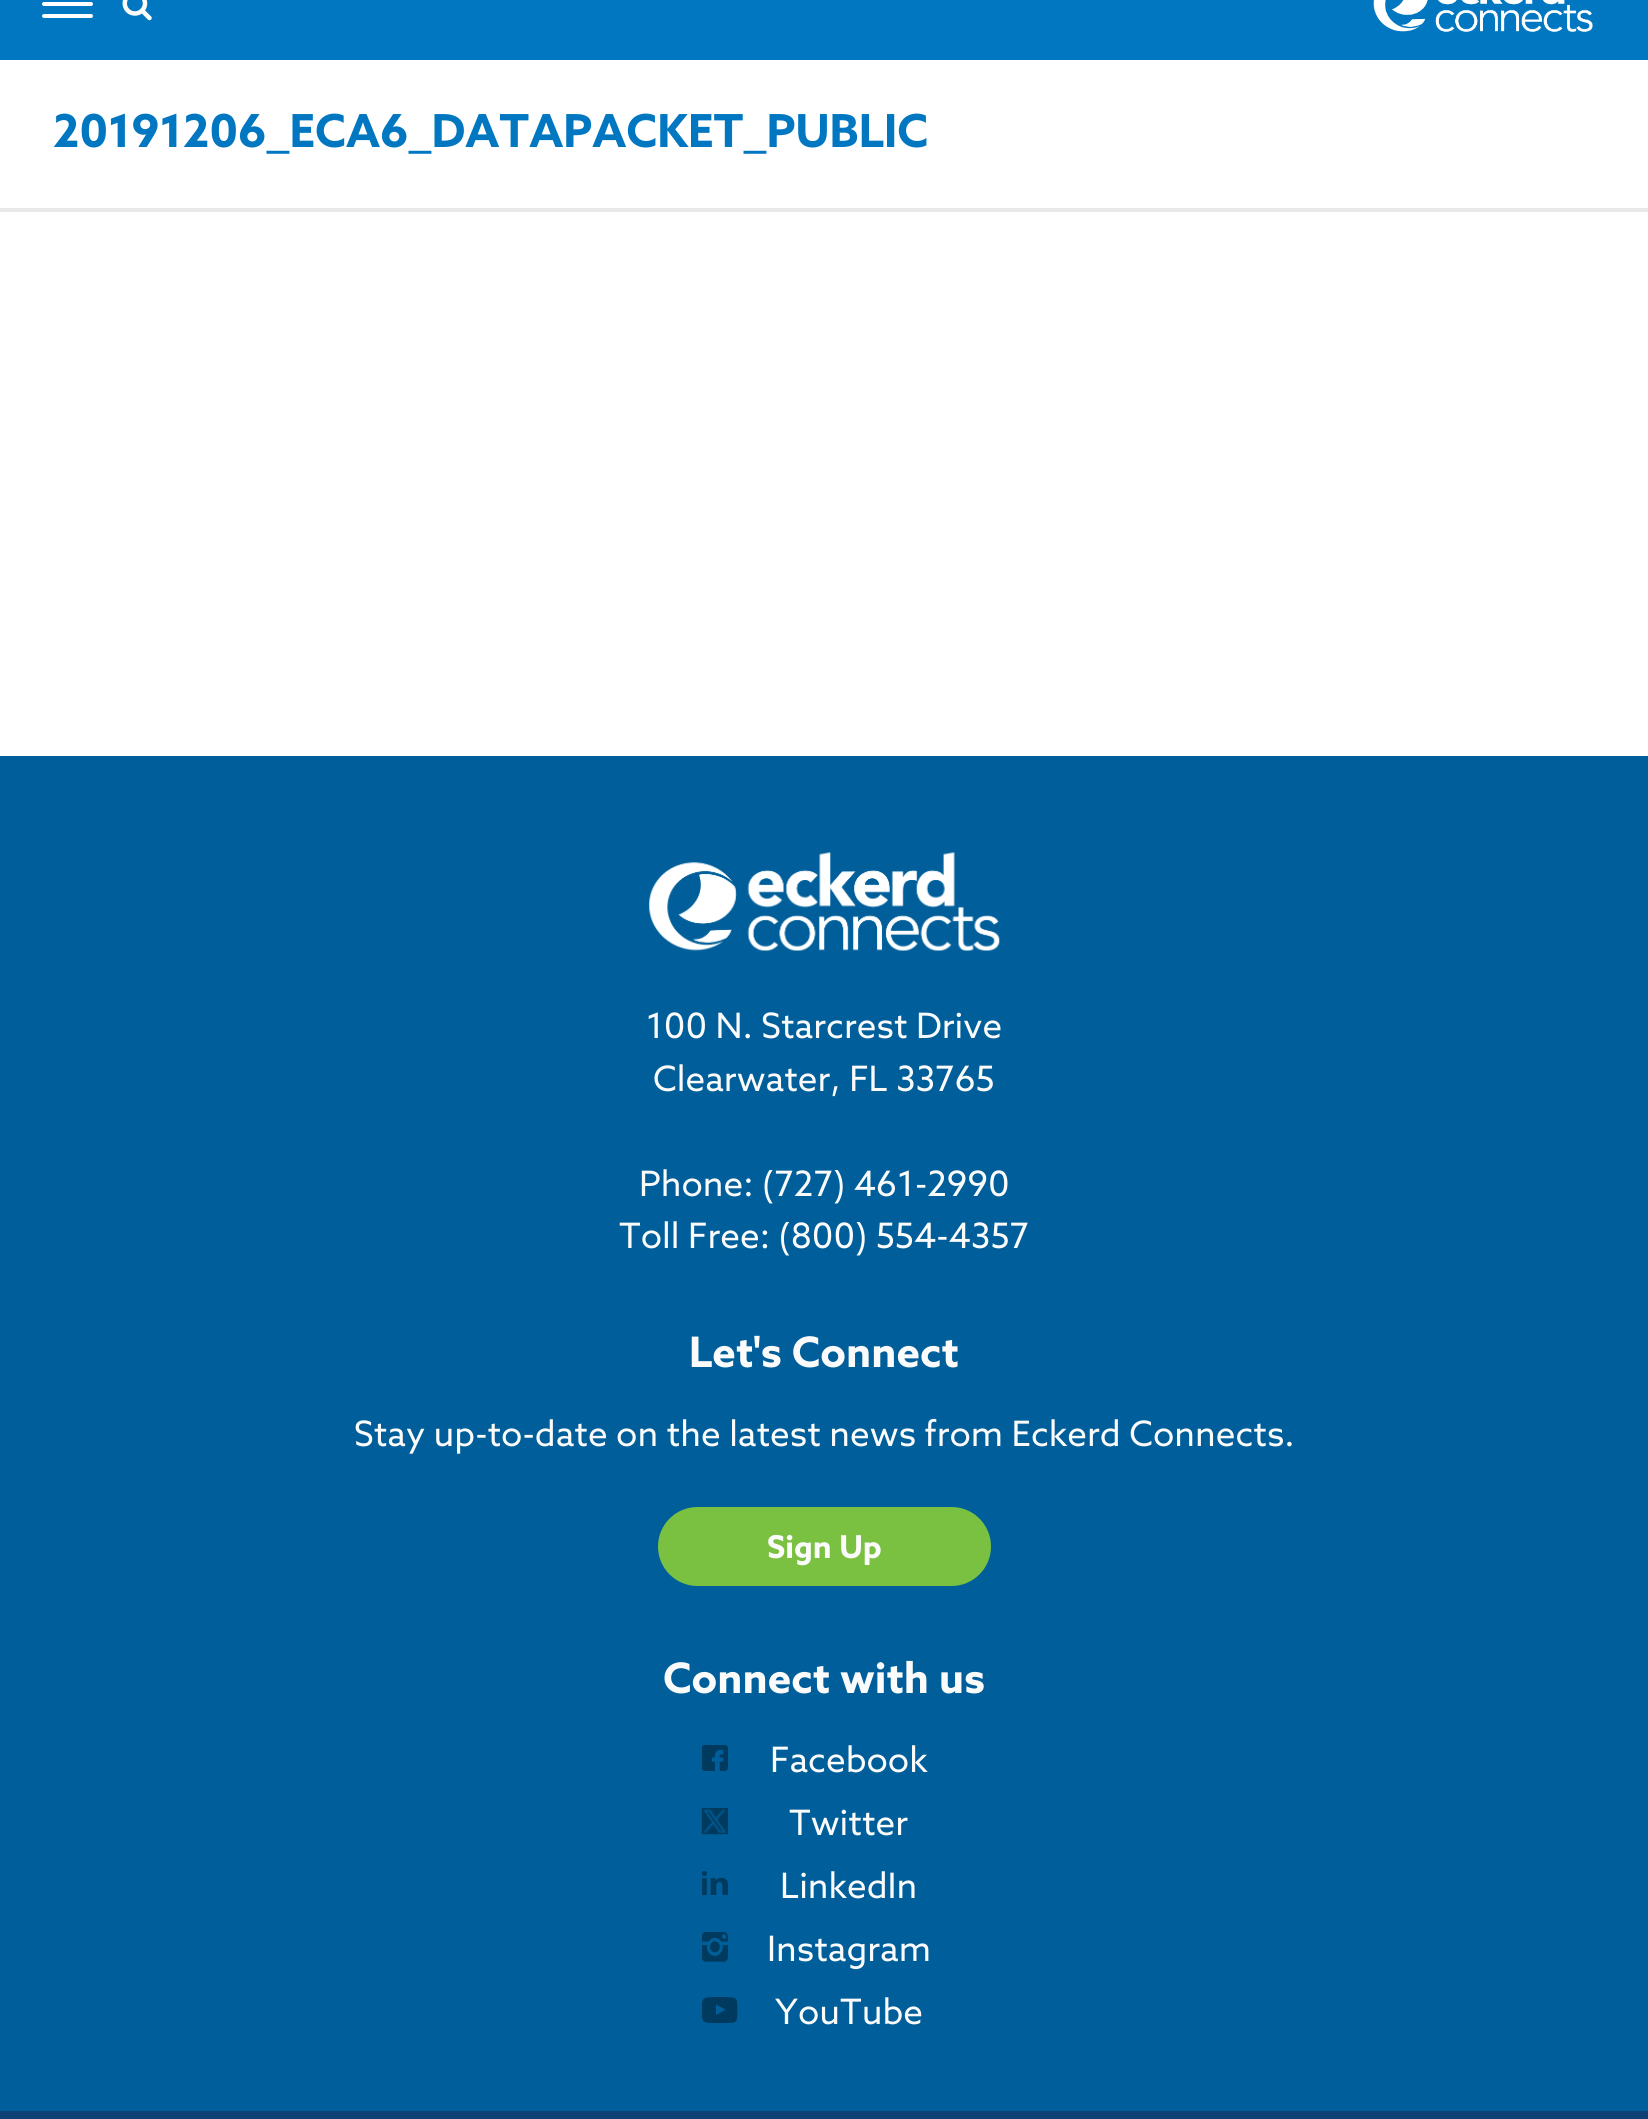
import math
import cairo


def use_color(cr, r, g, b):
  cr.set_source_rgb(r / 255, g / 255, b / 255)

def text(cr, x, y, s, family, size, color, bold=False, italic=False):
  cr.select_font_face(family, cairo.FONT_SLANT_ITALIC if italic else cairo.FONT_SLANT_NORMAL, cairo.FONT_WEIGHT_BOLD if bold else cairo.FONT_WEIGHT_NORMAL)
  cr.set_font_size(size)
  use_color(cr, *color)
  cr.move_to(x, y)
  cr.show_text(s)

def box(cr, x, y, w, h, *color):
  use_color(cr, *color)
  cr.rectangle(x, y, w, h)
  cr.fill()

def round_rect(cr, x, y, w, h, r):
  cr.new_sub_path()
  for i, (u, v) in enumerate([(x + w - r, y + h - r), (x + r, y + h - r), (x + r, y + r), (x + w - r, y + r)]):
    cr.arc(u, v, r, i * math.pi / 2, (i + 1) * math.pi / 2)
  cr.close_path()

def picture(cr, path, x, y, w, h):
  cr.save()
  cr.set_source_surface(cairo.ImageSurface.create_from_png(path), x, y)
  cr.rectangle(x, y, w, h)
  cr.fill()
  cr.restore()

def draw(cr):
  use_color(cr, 255, 255, 255)
  cr.paint()
  box(cr, 0, 0, 1648, 60, 0, 119, 192)
  use_color(cr, 255, 255, 255)
  round_rect(cr, 42, 2, 51, 4, 2)
  cr.fill()
  round_rect(cr, 42, 14, 51, 4, 2)
  cr.fill()
  picture(cr, "img_01.png", 122, 0, 30, 21)
  picture(cr, "img_02.png", 1373, 0, 220, 32)
  box(cr, 0, 208, 1648, 4, 232, 232, 232)
  box(cr, 0, 756, 1648, 1355, 0, 95, 154)
  picture(cr, "img_03.png", 649, 852, 351, 99)
  use_color(cr, 122, 193, 66)
  round_rect(cr, 658, 1507, 333, 79, 39.5)
  cr.fill()
  picture(cr, "img_04.png", 702, 1745, 26, 26)
  picture(cr, "img_05.png", 701, 1808, 27, 27)
  picture(cr, "img_06.png", 702, 1871, 26, 24)
  picture(cr, "img_07.png", 702, 1932, 26, 30)
  picture(cr, "img_08.png", 702, 1997, 36, 26)
  box(cr, 0, 2111, 1648, 8, 13, 64, 117)
  text(cr, 53, 147, "20191206_ECA6_DATAPACKET_PUBLIC", "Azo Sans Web", 45.5, (0, 119, 192), bold=True)
  text(cr, 646, 1038, "100 N. Starcrest Drive", "Azo Sans Web", 35, (251, 251, 251))
  text(cr, 653, 1091, "Clearwater, FL 33765", "Azo Sans Web", 35, (251, 251, 251))
  text(cr, 639, 1196, "Phone: (727) 461-2990", "Azo Sans Web", 35, (251, 251, 251))
  text(cr, 619, 1248, "Toll Free: (800) 554-4357", "Azo Sans Web", 35, (251, 251, 251))
  text(cr, 689, 1367, "Let's Connect", "Azo Sans Web", 42, (251, 251, 251), bold=True)
  text(cr, 354, 1446, "Stay up-to-date on the latest news from Eckerd Connects.", "Azo Sans Web", 35, (251, 251, 251))
  text(cr, 767, 1558, "Sign Up", "Azo Sans Web", 31.5, (251, 251, 251), bold=True)
  text(cr, 663, 1693, "Connect with us", "Azo Sans Web", 42, (251, 251, 251), bold=True)
  text(cr, 770, 1772, "Facebook", "Azo Sans Web", 35, (251, 251, 251))
  text(cr, 789, 1835, "Twitter", "Azo Sans Web", 35, (251, 251, 251))
  text(cr, 780, 1898, "LinkedIn", "Azo Sans Web", 35, (251, 251, 251))
  text(cr, 767, 1961, "Instagram", "Azo Sans Web", 35, (251, 251, 251))
  text(cr, 775, 2024, "YouTube", "Azo Sans Web", 35, (251, 251, 251))


surface = cairo.ImageSurface(cairo.FORMAT_RGB24, 1648, 2119)
cr = cairo.Context(surface)
options = cairo.FontOptions()
options.set_hint_metrics(cairo.HINT_METRICS_OFF)
options.set_hint_style(cairo.HINT_STYLE_NONE)
cr.set_font_options(options)
cr.set_miter_limit(4)
draw(cr)
surface.write_to_png("out.png")
